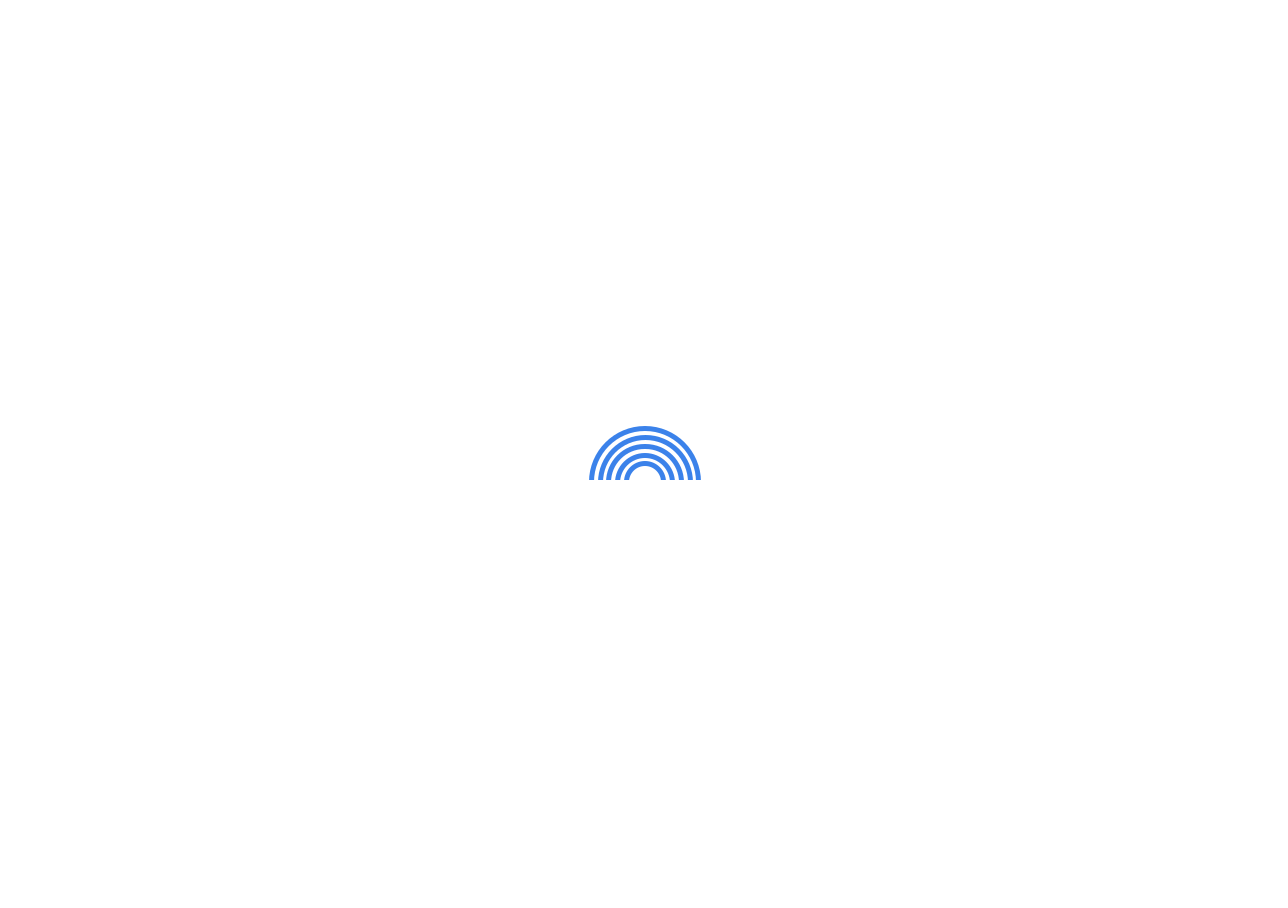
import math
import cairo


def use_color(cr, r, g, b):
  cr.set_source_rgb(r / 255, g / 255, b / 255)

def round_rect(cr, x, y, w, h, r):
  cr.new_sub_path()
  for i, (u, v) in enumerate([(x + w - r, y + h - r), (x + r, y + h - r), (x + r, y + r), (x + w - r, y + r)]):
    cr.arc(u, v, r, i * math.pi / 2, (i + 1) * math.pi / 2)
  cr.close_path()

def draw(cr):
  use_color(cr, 255, 255, 255)
  cr.paint()
  cr.save()
  cr.rectangle(583, 418, 125, 62)
  cr.clip()
  round_rect(cr, 591.5, 428.5, 107, 108, 53.5)
  use_color(cr, 59, 130, 234)
  cr.set_line_width(5)
  cr.stroke()
  cr.arc(645.5, 482.5, 45, 0, 2 * math.pi)
  cr.stroke()
  round_rect(cr, 608.5, 446.5, 73, 72, 36)
  cr.stroke()
  cr.arc(645, 483, 27.5, 0, 2 * math.pi)
  cr.stroke()
  round_rect(cr, 626.5, 463.5, 37, 38, 18.5)
  cr.stroke()
  cr.restore()


surface = cairo.ImageSurface(cairo.FORMAT_RGB24, 1288, 908)
cr = cairo.Context(surface)
options = cairo.FontOptions()
options.set_hint_metrics(cairo.HINT_METRICS_OFF)
options.set_hint_style(cairo.HINT_STYLE_NONE)
cr.set_font_options(options)
cr.set_miter_limit(4)
draw(cr)
surface.write_to_png("out.png")
